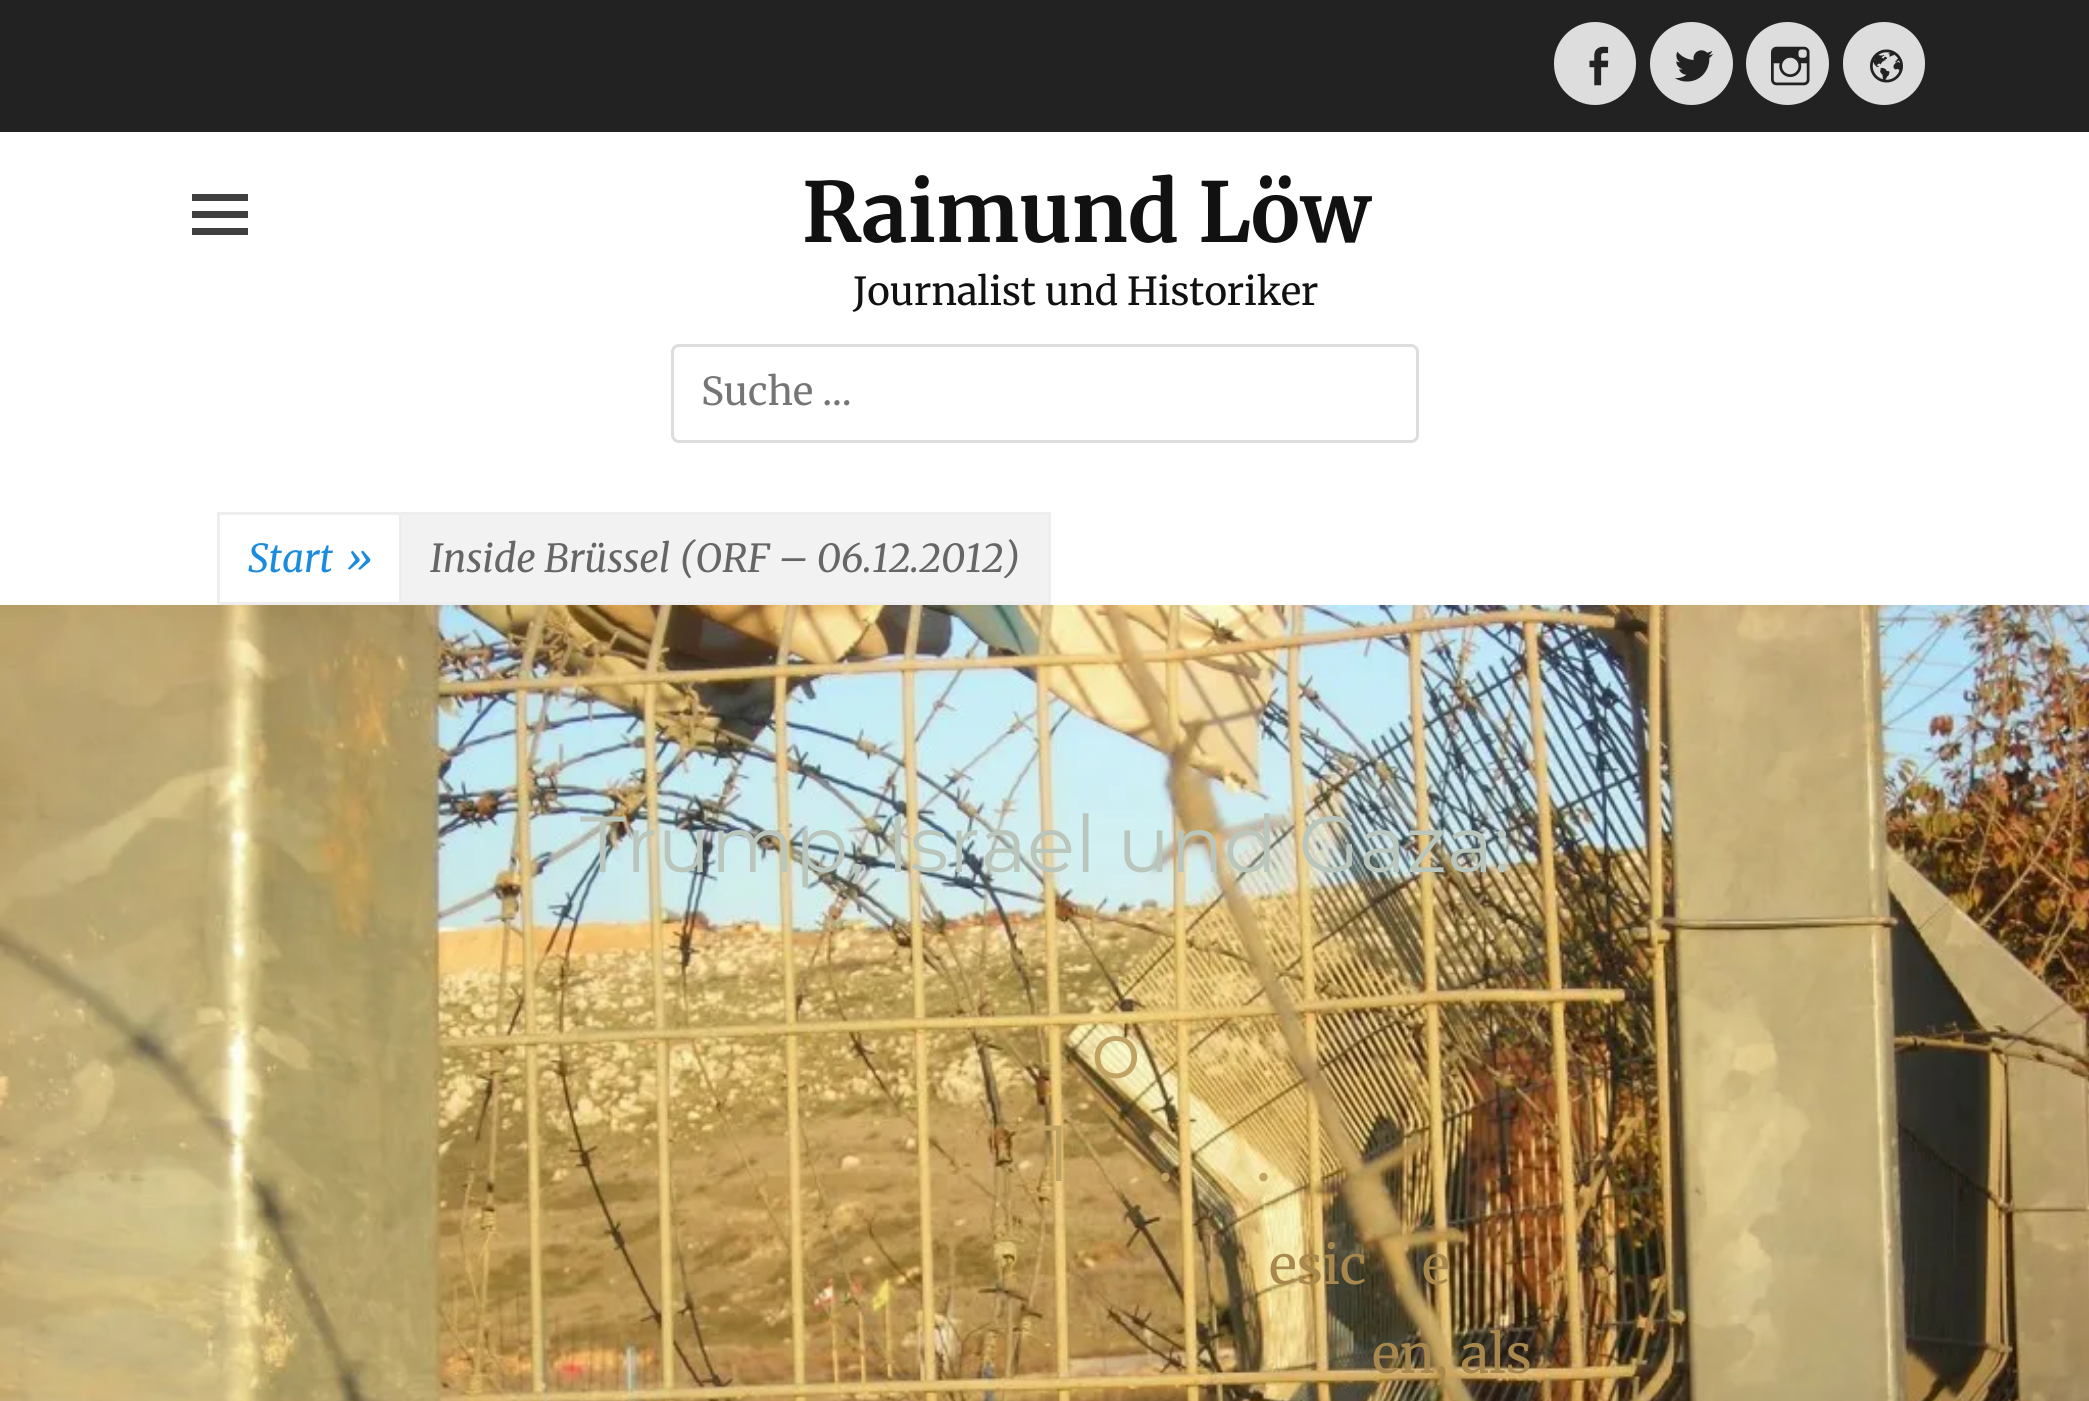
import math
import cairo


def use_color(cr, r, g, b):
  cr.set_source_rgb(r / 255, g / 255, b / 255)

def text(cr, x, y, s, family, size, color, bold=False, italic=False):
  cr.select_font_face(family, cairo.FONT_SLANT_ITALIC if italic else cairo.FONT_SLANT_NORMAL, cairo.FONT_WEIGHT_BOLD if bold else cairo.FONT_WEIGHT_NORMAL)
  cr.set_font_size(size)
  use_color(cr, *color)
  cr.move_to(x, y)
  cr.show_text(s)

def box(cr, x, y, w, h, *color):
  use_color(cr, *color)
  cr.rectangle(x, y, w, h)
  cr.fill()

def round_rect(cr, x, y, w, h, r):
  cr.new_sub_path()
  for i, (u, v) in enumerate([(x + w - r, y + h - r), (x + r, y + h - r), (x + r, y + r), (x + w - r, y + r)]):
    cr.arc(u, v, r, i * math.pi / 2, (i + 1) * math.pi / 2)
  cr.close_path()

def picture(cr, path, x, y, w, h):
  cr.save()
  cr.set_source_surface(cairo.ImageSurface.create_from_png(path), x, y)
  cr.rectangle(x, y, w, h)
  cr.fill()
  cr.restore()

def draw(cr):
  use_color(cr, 255, 255, 255)
  cr.paint()
  box(cr, 0, 0, 2089, 132, 34, 34, 34)
  use_color(cr, 221, 221, 221)
  round_rect(cr, 1554, 22, 82, 83, 41)
  cr.fill()
  picture(cr, "img_01.png", 1589, 46, 20, 40)
  cr.arc(1691.5, 63.5, 41.5, 0, 2 * math.pi)
  cr.fill()
  picture(cr, "img_02.png", 1675, 50, 39, 32)
  cr.arc(1787.5, 63.5, 41.5, 0, 2 * math.pi)
  cr.fill()
  picture(cr, "img_03.png", 1771, 46, 39, 40)
  round_rect(cr, 1843, 22, 82, 83, 41)
  cr.fill()
  picture(cr, "img_04.png", 1870, 49, 33, 34)
  use_color(cr, 64, 64, 64)
  cr.new_path()
  cr.move_to(192, 235)
  cr.line_to(192, 228)
  cr.line_to(248, 228)
  cr.line_to(248, 235)
  cr.close_path()
  cr.move_to(192, 194)
  cr.line_to(248, 194)
  cr.line_to(248, 201)
  cr.line_to(192, 201)
  cr.close_path()
  cr.move_to(192, 218)
  cr.line_to(192, 211)
  cr.line_to(248, 211)
  cr.line_to(248, 218)
  cr.close_path()
  cr.fill()
  round_rect(cr, 672.5, 345.5, 745, 96, 6.5)
  use_color(cr, 221, 221, 221)
  cr.set_line_width(3)
  cr.stroke()
  cr.rectangle(218.5, 513.5, 182, 90)
  use_color(cr, 238, 238, 238)
  cr.stroke()
  use_color(cr, 242, 242, 242)
  cr.rectangle(400.5, 513.5, 649, 90)
  cr.fill_preserve()
  use_color(cr, 238, 238, 238)
  cr.stroke()
  picture(cr, "img_05.png", 0, 605, 2089, 796)
  text(cr, 802, 242, "Raimund Löw", "Merriweather", 82.5, (17, 17, 17), bold=True)
  text(cr, 853, 305, "Journalist und Historiker", "Merriweather", 38.5, (17, 17, 17))
  text(cr, 701, 405, "Suche ...", "Merriweather", 38.5, (117, 117, 117))
  text(cr, 248, 572, "Start", "Merriweather", 38.5, (27, 139, 224), italic=True)
  text(cr, 346, 572, "»", "Merriweather", 38.5, (27, 139, 224), italic=True)
  text(cr, 430, 572, "Inside Brüssel (ORF – 06.12.2012)", "Merriweather", 38.5, (102, 102, 102), italic=True)
  text(cr, 580, 872, "Trump, Israel und Gaza:", "Montserrat", 79.25, (186, 197, 187))
  text(cr, 1091, 1078, "o", "Montserrat", 79.25, (192, 163, 98))
  text(cr, 1042, 1181, "1", "Montserrat", 79.25, (192, 163, 98))
  text(cr, 1157, 1181, ".", "Montserrat", 79.25, (192, 163, 98))
  text(cr, 1255, 1181, ".", "Montserrat", 79.25, (192, 163, 98))
  text(cr, 1269, 1284, "esic", "Merriweather", 53, (169, 136, 77))
  text(cr, 1422, 1284, "e", "Merriweather", 53, (169, 136, 77))
  text(cr, 1372, 1373, "en, als", "Merriweather", 53, (169, 136, 77))


surface = cairo.ImageSurface(cairo.FORMAT_RGB24, 2089, 1401)
cr = cairo.Context(surface)
options = cairo.FontOptions()
options.set_hint_metrics(cairo.HINT_METRICS_OFF)
options.set_hint_style(cairo.HINT_STYLE_NONE)
cr.set_font_options(options)
cr.set_miter_limit(4)
draw(cr)
surface.write_to_png("out.png")
